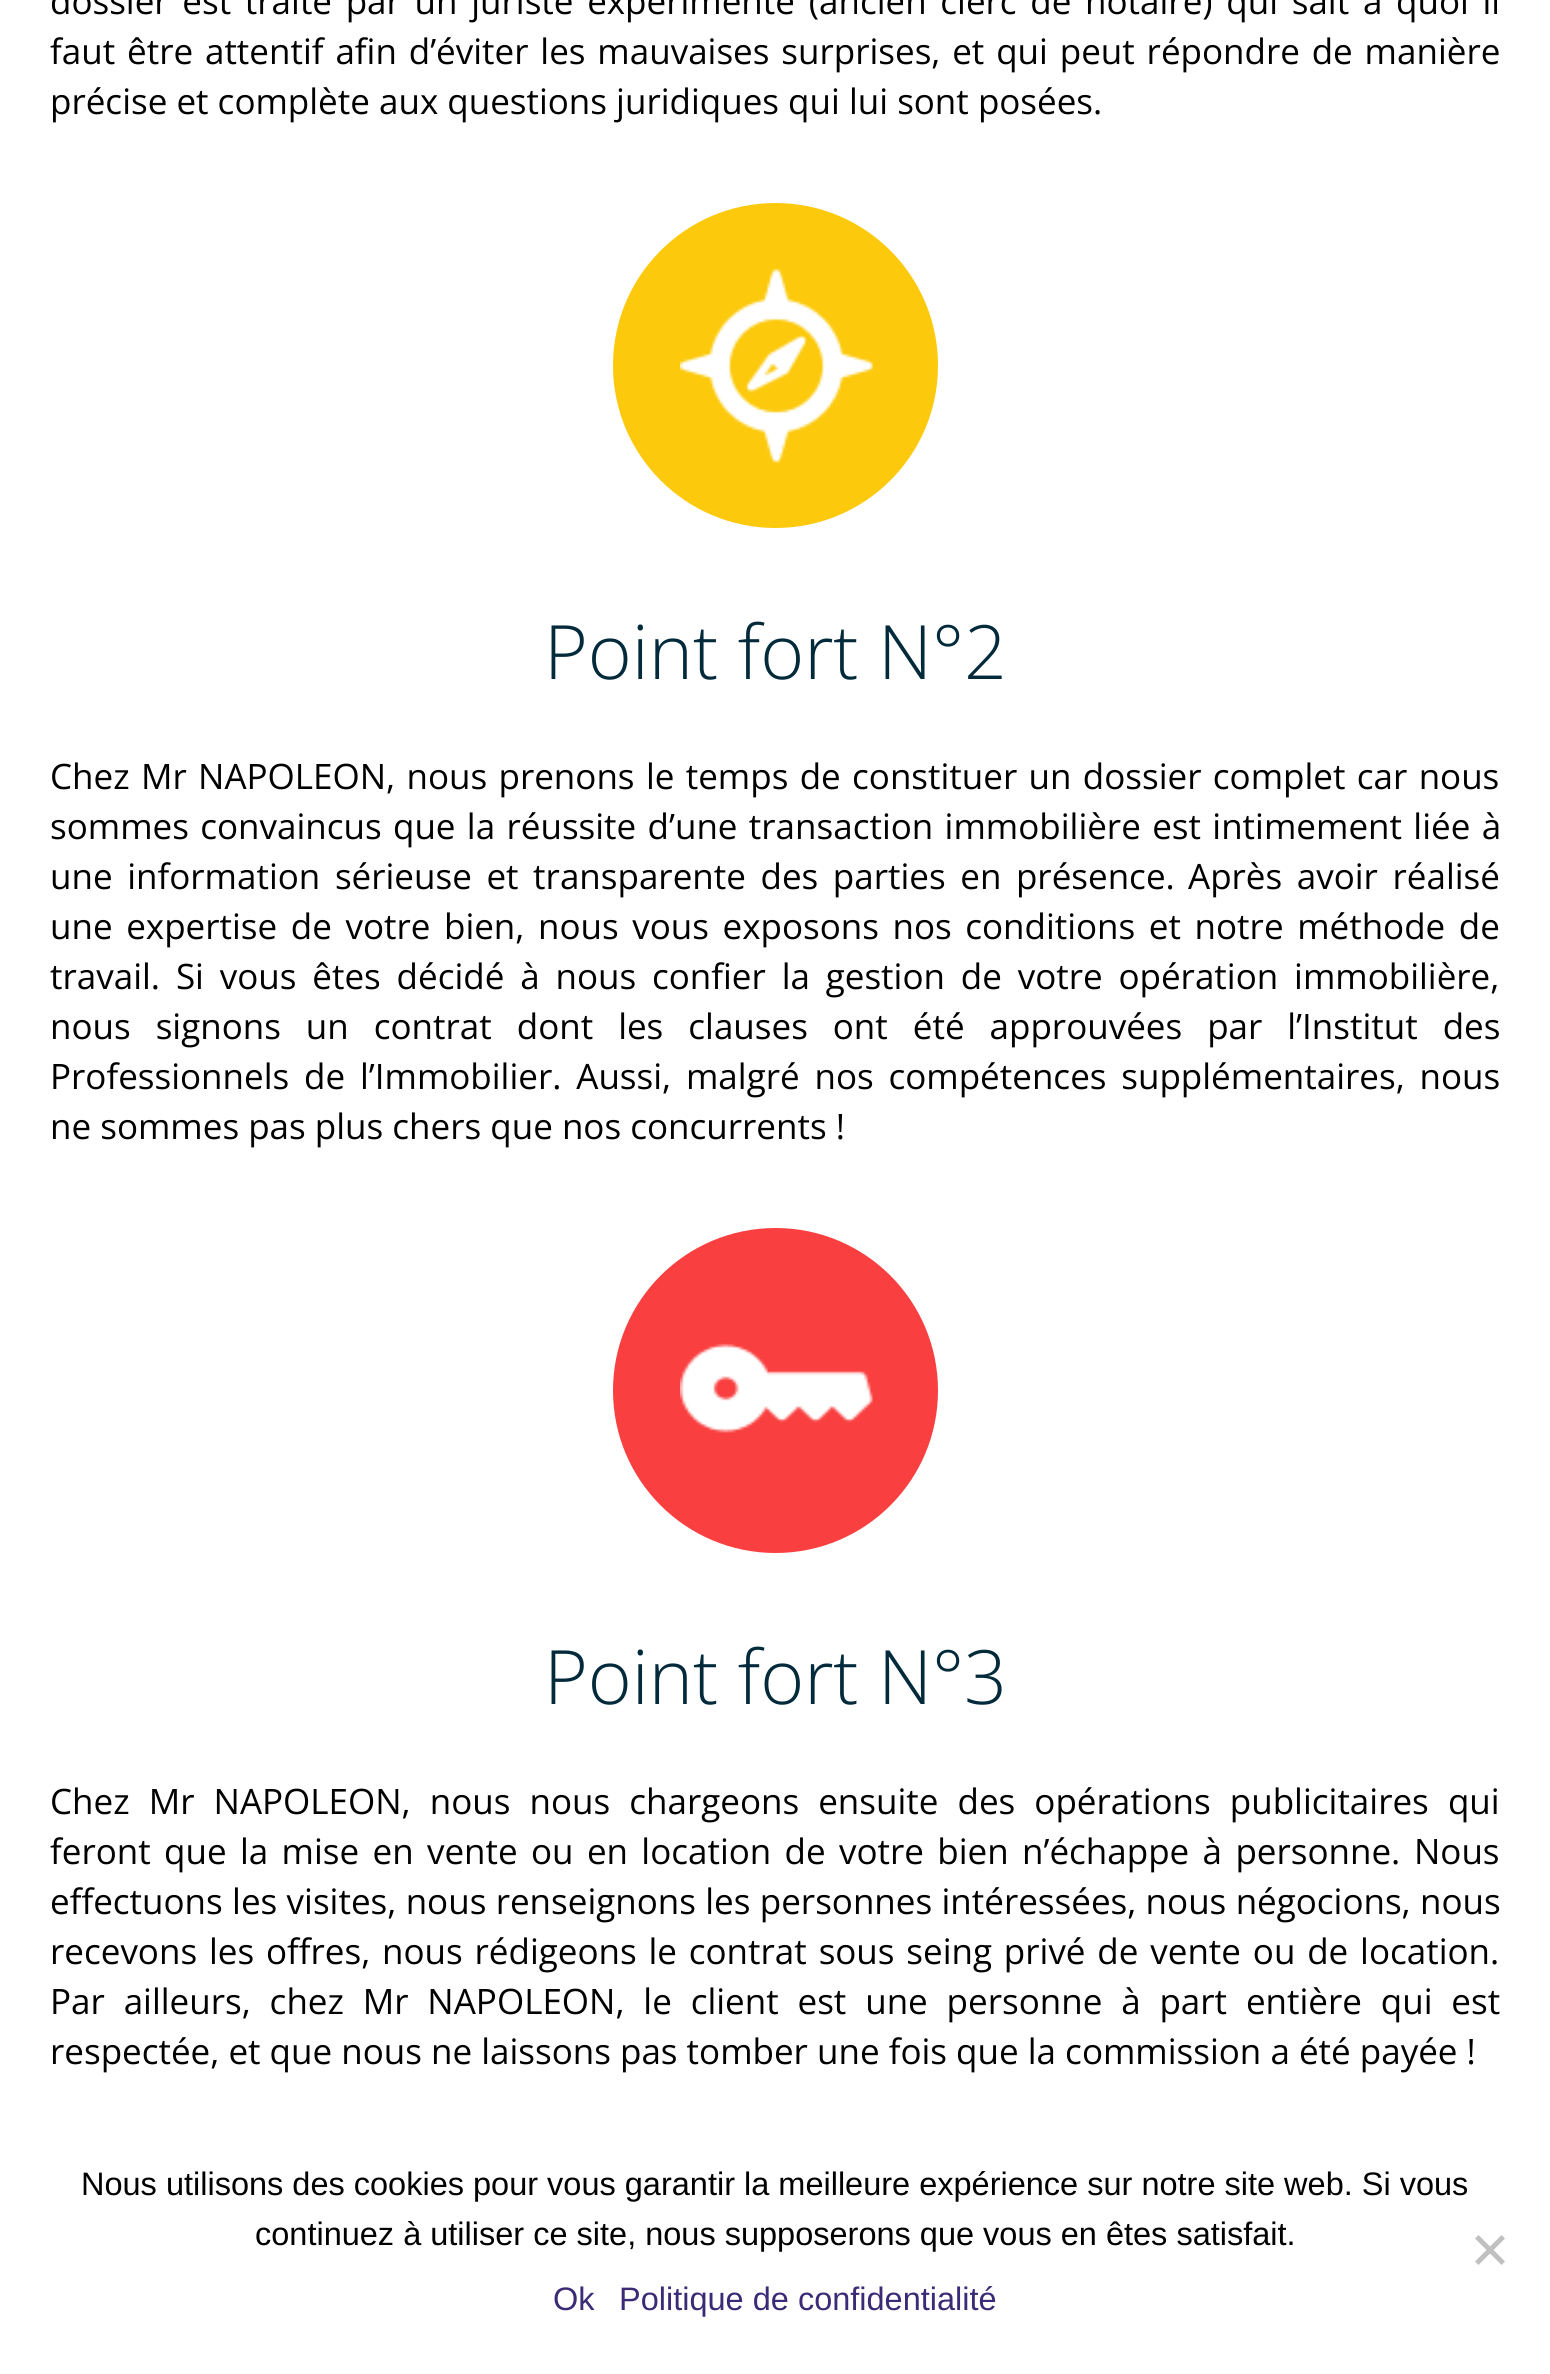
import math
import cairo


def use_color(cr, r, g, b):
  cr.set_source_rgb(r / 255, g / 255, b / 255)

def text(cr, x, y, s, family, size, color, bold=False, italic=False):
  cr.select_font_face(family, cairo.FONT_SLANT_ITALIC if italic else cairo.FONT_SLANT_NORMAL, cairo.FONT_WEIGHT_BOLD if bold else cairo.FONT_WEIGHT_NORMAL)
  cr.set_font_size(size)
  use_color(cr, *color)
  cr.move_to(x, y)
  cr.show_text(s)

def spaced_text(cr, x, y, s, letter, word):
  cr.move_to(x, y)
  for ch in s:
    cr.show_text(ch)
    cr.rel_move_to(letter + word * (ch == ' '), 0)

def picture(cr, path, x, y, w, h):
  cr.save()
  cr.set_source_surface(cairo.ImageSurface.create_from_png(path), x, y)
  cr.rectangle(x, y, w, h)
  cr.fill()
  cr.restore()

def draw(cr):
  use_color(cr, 255, 255, 255)
  cr.paint()
  use_color(cr, 252, 201, 12)
  cr.arc(775.5, 365.5, 162.5, 0, 2 * math.pi)
  cr.fill()
  picture(cr, "img_01.png", 680, 268, 193, 195)
  use_color(cr, 249, 63, 63)
  cr.arc(775.5, 1390.5, 162.5, 0, 2 * math.pi)
  cr.fill()
  picture(cr, "img_02.png", 680, 1343, 193, 90)
  use_color(cr, 192, 192, 192)
  cr.new_path()
  cr.move_to(1501.5, 2235)
  cr.line_to(1505, 2238.5)
  cr.line_to(1478.5, 2265)
  cr.line_to(1475, 2261.5)
  cr.close_path()
  cr.fill()
  cr.new_path()
  cr.move_to(1475, 2238.5)
  cr.line_to(1478.5, 2235)
  cr.line_to(1505, 2261.5)
  cr.line_to(1501.5, 2265)
  cr.close_path()
  cr.fill()
  cr.select_font_face("Open Sans")
  cr.set_font_size(35)
  use_color(cr, 0, 0, 0)
  spaced_text(cr, 50, 14, "dossier est traité par un juriste expérimenté (ancien clerc de notaire) qui sait à quoi il", 0, 4.6)
  spaced_text(cr, 50, 64, "faut être attentif afin d’éviter les mauvaises surprises, et qui peut répondre de manière", 0, 2.75)
  text(cr, 50, 114, "précise et complète aux questions juridiques qui lui sont posées.", "Open Sans", 35, (0, 0, 0))
  text(cr, 544, 679, "Point fort N°2", "Open Sans Light", 75, (2, 42, 59))
  cr.select_font_face("Open Sans")
  cr.set_font_size(35)
  use_color(cr, 0, 0, 0)
  spaced_text(cr, 50, 789, "Chez Mr NAPOLEON, nous prenons le temps de constituer un dossier complet car nous", 0, 2.25)
  spaced_text(cr, 50, 839, "sommes convaincus que la réussite d’une transaction immobilière est intimement liée à", 0, 2.25)
  spaced_text(cr, 50, 889, "une information sérieuse et transparente des parties en présence.", 0, 5.5)
  spaced_text(cr, 1188, 889, "Après avoir réalisé", 0, 5.5)
  spaced_text(cr, 50, 939, "une expertise de votre bien, nous vous exposons nos conditions et notre méthode de", 0, 4.5)
  spaced_text(cr, 50, 989, "travail. Si vous êtes décidé à nous confier la gestion de votre opération immobilière,", 0, 6.75)
  spaced_text(cr, 50, 1039, "nous signons un contrat dont les clauses ont été approuvées par l’Institut des", 0, 15.9)
  spaced_text(cr, 50, 1089, "Professionnels de l’Immobilier. Aussi, malgré nos compétences supplémentaires, nous", 0, 5.75)
  text(cr, 50, 1139, "ne sommes pas plus chers que nos concurrents !", "Open Sans", 35, (0, 0, 0))
  text(cr, 544, 1704, "Point fort N°3", "Open Sans Light", 75, (2, 42, 59))
  cr.select_font_face("Open Sans")
  cr.set_font_size(35)
  use_color(cr, 0, 0, 0)
  spaced_text(cr, 50, 1814, "Chez Mr NAPOLEON, nous nous chargeons ensuite des opérations publicitaires qui", 0, 10)
  spaced_text(cr, 50, 1864, "feront que la mise en vente ou en location de votre bien n’échappe à personne.", 0, 4.25)
  text(cr, 1414, 1864, "Nous", "Open Sans", 35, (0, 0, 0))
  spaced_text(cr, 50, 1914, "effectuons les visites, nous renseignons les personnes intéressées, nous négocions, nous", 0, 0.25)
  spaced_text(cr, 50, 1964, "recevons les offres, nous rédigeons le contrat sous seing privé de vente ou de location.", 0, 2.75)
  spaced_text(cr, 50, 2014, "Par ailleurs, chez Mr NAPOLEON, le client est une personne à part entière qui est", 0, 9.75)
  text(cr, 50, 2064, "respectée, et que nous ne laissons pas tomber une fois que la commission a été payée !", "Open Sans", 35, (0, 0, 0))
  text(cr, 81, 2195, "Nous utilisons des cookies pour vous garantir la meilleure expérience sur notre site web. Si vous", "Liberation Sans", 32.5, (0, 0, 0))
  text(cr, 255, 2245, "continuez à utiliser ce site, nous supposerons que vous en êtes satisfait.", "Liberation Sans", 32.5, (0, 0, 0))
  text(cr, 553, 2310, "Ok", "Liberation Sans", 32.5, (59, 43, 118))
  text(cr, 619, 2310, "Politique de confidentialité", "Liberation Sans", 32.5, (59, 43, 118))


surface = cairo.ImageSurface(cairo.FORMAT_RGB24, 1550, 2374)
cr = cairo.Context(surface)
options = cairo.FontOptions()
options.set_hint_metrics(cairo.HINT_METRICS_OFF)
options.set_hint_style(cairo.HINT_STYLE_NONE)
cr.set_font_options(options)
cr.set_miter_limit(4)
draw(cr)
surface.write_to_png("out.png")
